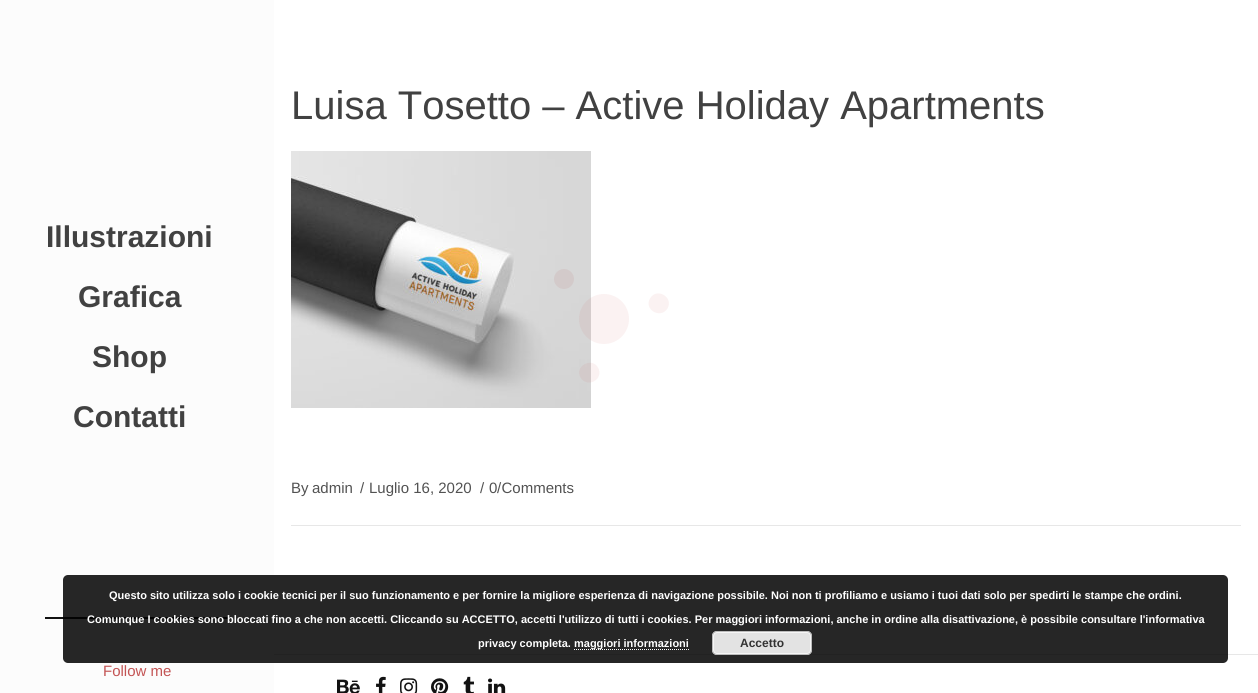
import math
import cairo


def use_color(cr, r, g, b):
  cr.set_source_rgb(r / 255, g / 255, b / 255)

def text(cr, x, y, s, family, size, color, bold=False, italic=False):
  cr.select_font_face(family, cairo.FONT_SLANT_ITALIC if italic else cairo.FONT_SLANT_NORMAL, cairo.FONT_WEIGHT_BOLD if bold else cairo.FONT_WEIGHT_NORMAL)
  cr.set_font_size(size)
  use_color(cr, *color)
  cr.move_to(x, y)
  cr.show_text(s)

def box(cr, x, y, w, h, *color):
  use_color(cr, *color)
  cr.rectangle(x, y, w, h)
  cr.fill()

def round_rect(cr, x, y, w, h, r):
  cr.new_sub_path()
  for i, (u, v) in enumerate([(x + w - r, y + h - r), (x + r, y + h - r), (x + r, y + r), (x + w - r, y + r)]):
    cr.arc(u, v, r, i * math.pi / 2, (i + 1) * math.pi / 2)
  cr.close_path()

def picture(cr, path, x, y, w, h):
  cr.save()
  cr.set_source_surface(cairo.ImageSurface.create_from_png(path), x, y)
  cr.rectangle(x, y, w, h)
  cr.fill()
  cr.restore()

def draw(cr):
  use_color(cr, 255, 255, 255)
  cr.paint()
  box(cr, 0, 0, 274, 693, 252, 252, 252)
  box(cr, 45, 617, 184, 2, 18, 18, 18)
  picture(cr, "img_01.png", 291, 151, 300, 257)
  box(cr, 291, 525, 950, 1, 231, 231, 231)
  box(cr, 274, 654, 984, 1, 231, 231, 231)
  picture(cr, "img_02.png", 337, 679, 23, 14)
  picture(cr, "img_03.png", 376, 676, 10, 17)
  picture(cr, "img_04.png", 400, 678, 18, 15)
  picture(cr, "img_05.png", 431, 678, 18, 15)
  picture(cr, "img_06.png", 463, 676, 11, 17)
  picture(cr, "img_07.png", 488, 678, 18, 15)
  use_color(cr, 211, 202, 202)
  cr.arc(564, 279, 10, 0, 2 * math.pi)
  cr.fill()
  cr.set_source_rgba(0.745, 0.278, 0.278, 0.07)
  cr.arc(604, 319, 25, 0, 2 * math.pi)
  cr.fill()
  use_color(cr, 251, 242, 242)
  cr.new_path()
  cr.move_to(667.5, 308.5)
  cr.curve_to(660.5, 319.5, 643.5, 309.5, 650, 298.5)
  cr.curve_to(656.5, 287, 674, 297, 667.5, 308.5)
  cr.close_path()
  cr.fill()
  cr.set_source_rgba(0.745, 0.278, 0.278, 0.07)
  cr.new_path()
  cr.move_to(580.5, 377.5)
  cr.curve_to(574, 366.5, 591.5, 356.5, 598, 367.5)
  cr.curve_to(604.5, 379, 587.5, 389, 580.5, 377.5)
  cr.close_path()
  cr.fill()
  cr.set_source_rgba(0, 0, 0, 0.85)
  round_rect(cr, 63, 575, 1165, 88, 5)
  cr.fill()
  cr.new_path()
  cr.move_to(574, 649.5)
  cr.line_to(689, 649.5)
  use_color(cr, 255, 255, 255)
  cr.set_line_width(1)
  cr.set_dash([1, 1])
  cr.stroke()
  use_color(cr, 227, 227, 227)
  round_rect(cr, 712, 631, 100, 24, 5)
  cr.fill()
  round_rect(cr, 713.5, 632.5, 97, 21, 3.5)
  use_color(cr, 246, 246, 246)
  cr.set_dash([])
  cr.stroke()
  round_rect(cr, 712.5, 631.5, 99, 23, 4.5)
  use_color(cr, 187, 187, 187)
  cr.stroke()
  text(cr, 46, 247, "Illustrazioni", "Liberation Sans", 30, (65, 65, 65), bold=True)
  text(cr, 78, 307, "Grafica", "Liberation Sans", 30, (65, 65, 65), bold=True)
  text(cr, 92, 367, "Shop", "Liberation Sans", 30, (65, 65, 65), bold=True)
  text(cr, 73, 427, "Contatti", "Liberation Sans", 30, (65, 65, 65), bold=True)
  text(cr, 103, 676, "Follow me", "Liberation Sans", 15, (195, 84, 84))
  text(cr, 291, 119, "Luisa Tosetto – Active Holiday Apartments", "Liberation Sans", 40, (65, 65, 65))
  text(cr, 291, 493, "By", "Liberation Sans", 15, (82, 82, 82))
  text(cr, 312, 493, "admin", "Liberation Sans", 15, (82, 82, 82))
  text(cr, 360, 493, "/", "Liberation Sans", 15, (82, 82, 82))
  text(cr, 369, 493, "Luglio 16, 2020", "Liberation Sans", 15, (82, 82, 82))
  text(cr, 480, 493, "/", "Liberation Sans", 15, (82, 82, 82))
  text(cr, 497, 493, "/", "Liberation Sans", 15, (82, 82, 82))
  text(cr, 489, 493, "0 Comments", "Liberation Sans", 15, (82, 82, 82))
  text(cr, 109, 599, "Questo sito utilizza solo i cookie tecnici per il suo funzionamento e per fornire la migliore esperienza di navigazione possibile. Noi non ti profiliamo e usiamo i tuoi dati solo per spedirti le stampe che ordini.", "Liberation Sans", 11, (255, 255, 255), bold=True)
  text(cr, 87, 623, "Comunque I cookies sono bloccati fino a che non accetti. Cliccando su ACCETTO, accetti l'utilizzo di tutti i cookies. Per maggiori informazioni, anche in ordine alla disattivazione, è possibile consultare l'informativa", "Liberation Sans", 11, (255, 255, 255), bold=True)
  text(cr, 478, 647, "privacy completa.", "Liberation Sans", 11, (255, 255, 255), bold=True)
  text(cr, 574, 647, "maggiori informazioni", "Liberation Sans", 11, (255, 255, 255), bold=True)
  text(cr, 740, 647, "Accetto", "Liberation Sans", 12, (51, 51, 51), bold=True)


surface = cairo.ImageSurface(cairo.FORMAT_RGB24, 1258, 693)
cr = cairo.Context(surface)
options = cairo.FontOptions()
options.set_hint_metrics(cairo.HINT_METRICS_OFF)
options.set_hint_style(cairo.HINT_STYLE_NONE)
cr.set_font_options(options)
cr.set_miter_limit(4)
draw(cr)
surface.write_to_png("out.png")
